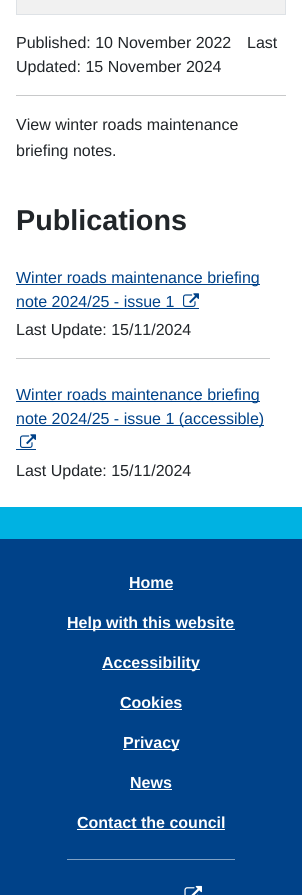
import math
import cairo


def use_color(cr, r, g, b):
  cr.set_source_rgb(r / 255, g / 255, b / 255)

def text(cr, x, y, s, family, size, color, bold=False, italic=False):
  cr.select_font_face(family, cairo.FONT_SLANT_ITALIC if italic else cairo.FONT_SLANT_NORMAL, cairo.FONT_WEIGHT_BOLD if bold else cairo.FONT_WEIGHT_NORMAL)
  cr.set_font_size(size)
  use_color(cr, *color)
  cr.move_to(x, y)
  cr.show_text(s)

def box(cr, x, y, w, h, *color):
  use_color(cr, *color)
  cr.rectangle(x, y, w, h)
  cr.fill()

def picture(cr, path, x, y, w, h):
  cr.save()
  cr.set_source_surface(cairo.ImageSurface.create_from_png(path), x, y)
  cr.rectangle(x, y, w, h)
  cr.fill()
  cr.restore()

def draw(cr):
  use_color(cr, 255, 255, 255)
  cr.paint()
  cr.rectangle(16.5, -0.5, 269, 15)
  use_color(cr, 222, 226, 230)
  cr.set_line_width(1)
  cr.stroke()
  box(cr, 17, 0, 268, 14, 241, 241, 241)
  box(cr, 16, 95, 270, 1, 200, 201, 202)
  box(cr, 16, 284, 244, 1, 0, 66, 137)
  box(cr, 16, 308, 183, 1, 0, 66, 137)
  picture(cr, "img_01.png", 183, 293, 16, 14)
  box(cr, 16, 358, 254, 1, 200, 201, 202)
  box(cr, 16, 401, 244, 1, 0, 66, 137)
  box(cr, 16, 425, 248, 1, 0, 66, 137)
  box(cr, 16, 449, 20, 1, 0, 66, 137)
  picture(cr, "img_01.png", 20, 434, 16, 14)
  box(cr, 0, 539, 302, 356, 0, 66, 137)
  box(cr, 0, 507, 302, 32, 0, 178, 226)
  box(cr, 67, 859, 168, 1, 128, 161, 196)
  box(cr, 129, 589, 44, 1, 255, 255, 255)
  box(cr, 67, 629, 168, 1, 255, 255, 255)
  box(cr, 102, 669, 98, 1, 255, 255, 255)
  box(cr, 120, 709, 62, 1, 255, 255, 255)
  box(cr, 123, 749, 56, 1, 255, 255, 255)
  box(cr, 130, 789, 42, 1, 255, 255, 255)
  box(cr, 77, 829, 148, 1, 255, 255, 255)
  picture(cr, "img_02.png", 184, 885, 18, 10)
  text(cr, 16, 48, "Published: 10 November 2022", "Liberation Sans", 16, (33, 37, 41))
  text(cr, 247, 48, "Last", "Liberation Sans", 16, (33, 37, 41))
  text(cr, 16, 72, "Updated: 15 November 2024", "Liberation Sans", 16, (33, 37, 41))
  text(cr, 16, 130, "View winter roads maintenance", "Liberation Sans", 16, (33, 37, 41))
  text(cr, 16, 156, "briefing notes.", "Liberation Sans", 16, (33, 37, 41))
  text(cr, 16, 230, "Publications", "Liberation Sans", 28.75, (33, 37, 41), bold=True)
  text(cr, 16, 283, "Winter roads maintenance briefing", "Liberation Sans", 16, (0, 66, 137))
  text(cr, 16, 307, "note 2024/25 - issue 1", "Liberation Sans", 16, (0, 66, 137))
  text(cr, 16, 335, "Last Update: 15/11/2024", "Liberation Sans", 16, (33, 37, 41))
  text(cr, 16, 400, "Winter roads maintenance briefing", "Liberation Sans", 16, (0, 66, 137))
  text(cr, 16, 424, "note 2024/25 - issue 1 (accessible)", "Liberation Sans", 16, (0, 66, 137))
  text(cr, 16, 476, "Last Update: 15/11/2024", "Liberation Sans", 16, (33, 37, 41))
  text(cr, 129, 588, "Home", "Liberation Sans", 16, (255, 255, 255), bold=True)
  text(cr, 67, 628, "Help with this website", "Liberation Sans", 16, (255, 255, 255), bold=True)
  text(cr, 102, 668, "Accessibility", "Liberation Sans", 16, (255, 255, 255), bold=True)
  text(cr, 120, 708, "Cookies", "Liberation Sans", 16, (255, 255, 255), bold=True)
  text(cr, 123, 748, "Privacy", "Liberation Sans", 16, (255, 255, 255), bold=True)
  text(cr, 130, 788, "News", "Liberation Sans", 16, (255, 255, 255), bold=True)
  text(cr, 77, 828, "Contact the council", "Liberation Sans", 16, (255, 255, 255), bold=True)


surface = cairo.ImageSurface(cairo.FORMAT_RGB24, 302, 895)
cr = cairo.Context(surface)
options = cairo.FontOptions()
options.set_hint_metrics(cairo.HINT_METRICS_OFF)
options.set_hint_style(cairo.HINT_STYLE_NONE)
cr.set_font_options(options)
cr.set_miter_limit(4)
draw(cr)
surface.write_to_png("out.png")
